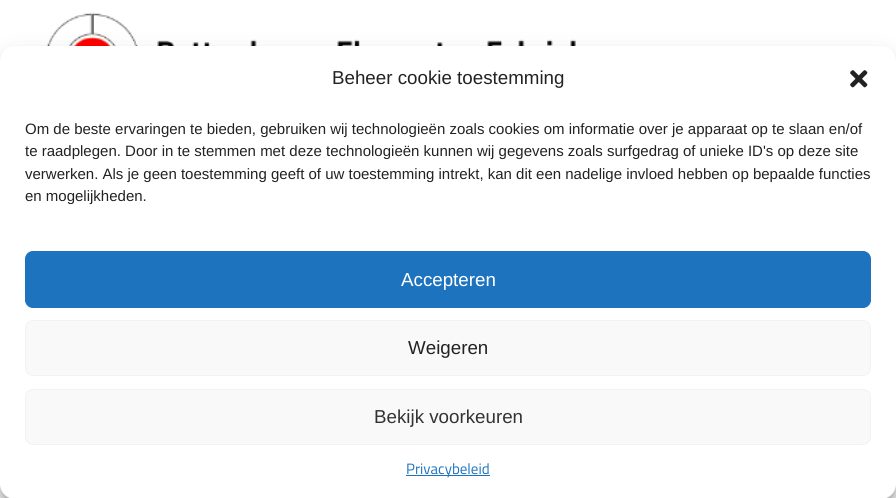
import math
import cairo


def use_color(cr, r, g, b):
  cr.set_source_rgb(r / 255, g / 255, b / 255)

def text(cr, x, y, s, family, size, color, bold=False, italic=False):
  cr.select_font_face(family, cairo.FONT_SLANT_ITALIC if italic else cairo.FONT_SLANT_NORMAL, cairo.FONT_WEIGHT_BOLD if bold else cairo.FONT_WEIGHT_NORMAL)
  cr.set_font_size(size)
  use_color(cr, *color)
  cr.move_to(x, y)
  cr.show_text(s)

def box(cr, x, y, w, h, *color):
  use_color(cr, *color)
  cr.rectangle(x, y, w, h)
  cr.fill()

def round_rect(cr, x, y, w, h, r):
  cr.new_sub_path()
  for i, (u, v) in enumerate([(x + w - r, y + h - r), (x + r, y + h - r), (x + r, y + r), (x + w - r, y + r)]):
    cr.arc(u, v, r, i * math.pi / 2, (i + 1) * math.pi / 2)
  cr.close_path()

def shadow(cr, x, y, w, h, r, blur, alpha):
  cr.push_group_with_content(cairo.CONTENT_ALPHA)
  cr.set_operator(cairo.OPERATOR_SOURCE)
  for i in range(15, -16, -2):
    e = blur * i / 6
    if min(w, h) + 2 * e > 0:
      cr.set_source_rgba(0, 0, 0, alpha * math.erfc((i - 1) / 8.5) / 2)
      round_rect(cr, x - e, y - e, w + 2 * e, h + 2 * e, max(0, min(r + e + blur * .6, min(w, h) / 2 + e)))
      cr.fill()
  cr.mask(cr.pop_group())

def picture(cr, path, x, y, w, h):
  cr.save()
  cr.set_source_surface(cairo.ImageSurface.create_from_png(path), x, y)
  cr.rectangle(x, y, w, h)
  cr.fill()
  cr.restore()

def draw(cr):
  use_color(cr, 255, 255, 255)
  cr.paint()
  picture(cr, "img_01.png", 46, 12, 530, 34)
  use_color(cr, 0, 0, 0)
  shadow(cr, 0, 54, 896, 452, 15, 4, 0.23)
  shadow(cr, 0, 59, 896, 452, 15, 12.5, 0.19)
  use_color(cr, 255, 255, 255)
  round_rect(cr, 0, 46, 896, 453, 15)
  cr.fill()
  picture(cr, "img_02.png", 850, 70, 18, 18)
  use_color(cr, 30, 115, 190)
  round_rect(cr, 25.5, 251.5, 845, 56, 7.5)
  cr.fill_preserve()
  cr.set_line_width(1)
  cr.stroke()
  use_color(cr, 249, 249, 249)
  round_rect(cr, 25.5, 320.5, 845, 55, 7.5)
  cr.fill_preserve()
  use_color(cr, 242, 242, 242)
  cr.stroke()
  use_color(cr, 249, 249, 249)
  round_rect(cr, 25.5, 389.5, 845, 55, 7.5)
  cr.fill_preserve()
  use_color(cr, 242, 242, 242)
  cr.stroke()
  box(cr, 406, 475, 84, 1, 30, 115, 190)
  text(cr, 332, 84, "Beheer cookie toestemming", "Liberation Sans", 18.75, (34, 34, 34))
  text(cr, 25, 134, "Om de beste ervaringen te bieden, gebruiken wij technologieën zoals cookies om informatie over je apparaat op te slaan en/of", "Liberation Sans", 15, (34, 34, 34))
  text(cr, 25, 156, "te raadplegen. Door in te stemmen met deze technologieën kunnen wij gegevens zoals surfgedrag of unieke ID's op deze site", "Liberation Sans", 15, (34, 34, 34))
  text(cr, 25, 179, "verwerken. Als je geen toestemming geeft of uw toestemming intrekt, kan dit een nadelige invloed hebben op bepaalde functies", "Liberation Sans", 15, (34, 34, 34))
  text(cr, 25, 201, "en mogelijkheden.", "Liberation Sans", 15, (34, 34, 34))
  text(cr, 401, 286, "Accepteren", "Liberation Sans", 18.75, (255, 255, 255))
  text(cr, 408, 354, "Weigeren", "Liberation Sans", 18.75, (34, 34, 34))
  text(cr, 374, 423, "Bekijk voorkeuren", "Liberation Sans", 18.75, (51, 51, 51))
  text(cr, 406, 474, "Privacybeleid", "Titillium Web", 15, (30, 115, 190))


surface = cairo.ImageSurface(cairo.FORMAT_RGB24, 896, 498)
cr = cairo.Context(surface)
options = cairo.FontOptions()
options.set_hint_metrics(cairo.HINT_METRICS_OFF)
options.set_hint_style(cairo.HINT_STYLE_NONE)
cr.set_font_options(options)
cr.set_miter_limit(4)
draw(cr)
surface.write_to_png("out.png")
